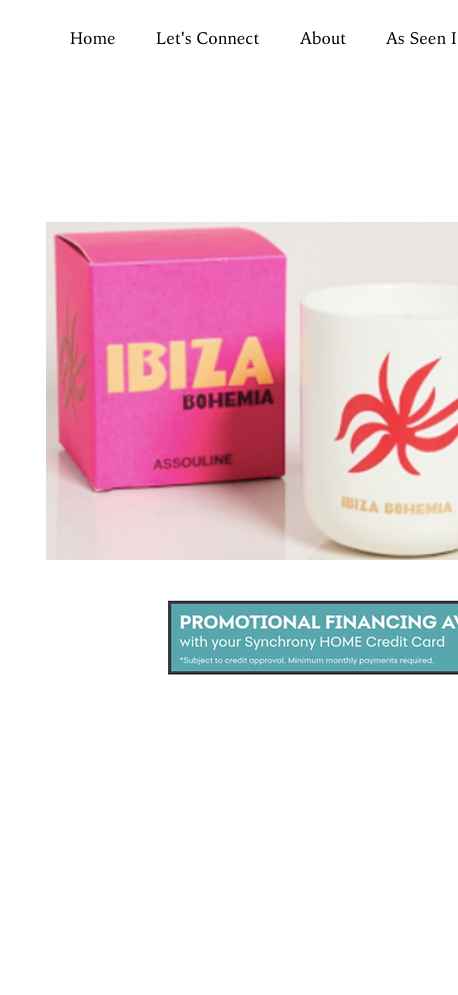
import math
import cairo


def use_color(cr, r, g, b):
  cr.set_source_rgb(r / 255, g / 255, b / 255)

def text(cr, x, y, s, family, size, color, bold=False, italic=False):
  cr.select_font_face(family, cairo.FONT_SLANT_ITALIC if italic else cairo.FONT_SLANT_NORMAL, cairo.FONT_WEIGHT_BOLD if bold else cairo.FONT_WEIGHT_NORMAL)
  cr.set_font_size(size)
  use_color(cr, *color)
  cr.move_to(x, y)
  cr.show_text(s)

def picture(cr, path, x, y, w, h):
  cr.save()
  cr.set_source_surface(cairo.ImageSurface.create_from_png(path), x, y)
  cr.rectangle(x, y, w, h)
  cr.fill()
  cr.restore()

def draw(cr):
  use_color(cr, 255, 255, 255)
  cr.paint()
  picture(cr, "img_01.png", 46, 222, 412, 338)
  picture(cr, "img_02.png", 168, 600, 290, 75)
  text(cr, 70, 44, "Home", "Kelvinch", 17, (0, 0, 0))
  text(cr, 156, 44, "Let's Connect", "Kelvinch", 17, (0, 0, 0))
  text(cr, 300, 44, "About", "Kelvinch", 17, (0, 0, 0))
  text(cr, 386, 44, "As Seen I", "Kelvinch", 17, (0, 0, 0))


surface = cairo.ImageSurface(cairo.FORMAT_RGB24, 458, 995)
cr = cairo.Context(surface)
options = cairo.FontOptions()
options.set_hint_metrics(cairo.HINT_METRICS_OFF)
options.set_hint_style(cairo.HINT_STYLE_NONE)
cr.set_font_options(options)
cr.set_miter_limit(4)
draw(cr)
surface.write_to_png("out.png")
